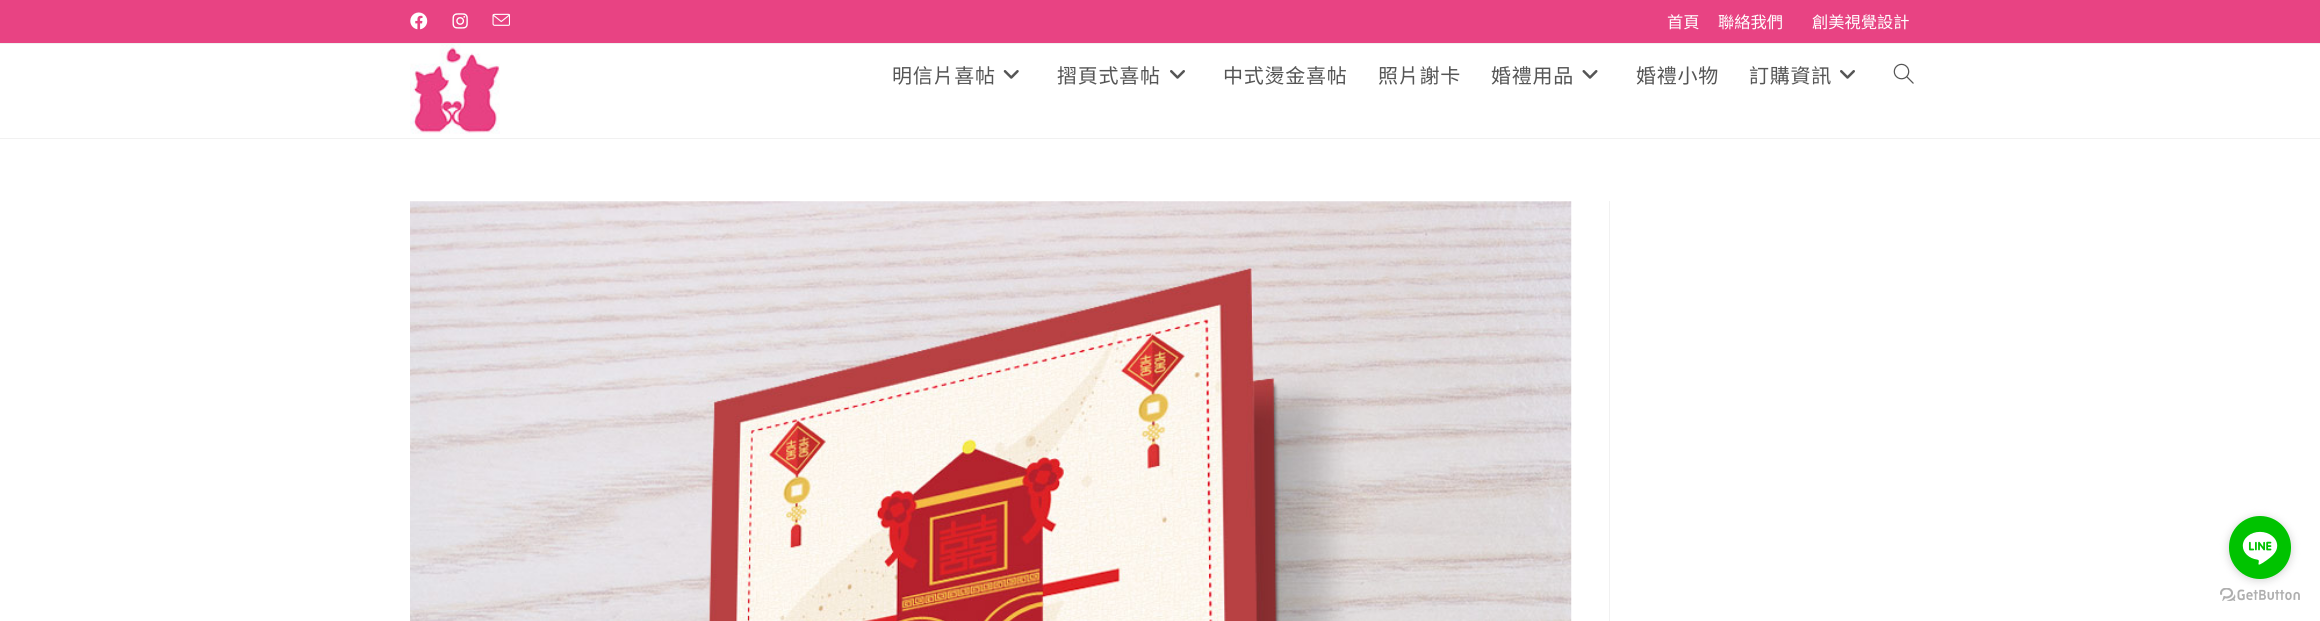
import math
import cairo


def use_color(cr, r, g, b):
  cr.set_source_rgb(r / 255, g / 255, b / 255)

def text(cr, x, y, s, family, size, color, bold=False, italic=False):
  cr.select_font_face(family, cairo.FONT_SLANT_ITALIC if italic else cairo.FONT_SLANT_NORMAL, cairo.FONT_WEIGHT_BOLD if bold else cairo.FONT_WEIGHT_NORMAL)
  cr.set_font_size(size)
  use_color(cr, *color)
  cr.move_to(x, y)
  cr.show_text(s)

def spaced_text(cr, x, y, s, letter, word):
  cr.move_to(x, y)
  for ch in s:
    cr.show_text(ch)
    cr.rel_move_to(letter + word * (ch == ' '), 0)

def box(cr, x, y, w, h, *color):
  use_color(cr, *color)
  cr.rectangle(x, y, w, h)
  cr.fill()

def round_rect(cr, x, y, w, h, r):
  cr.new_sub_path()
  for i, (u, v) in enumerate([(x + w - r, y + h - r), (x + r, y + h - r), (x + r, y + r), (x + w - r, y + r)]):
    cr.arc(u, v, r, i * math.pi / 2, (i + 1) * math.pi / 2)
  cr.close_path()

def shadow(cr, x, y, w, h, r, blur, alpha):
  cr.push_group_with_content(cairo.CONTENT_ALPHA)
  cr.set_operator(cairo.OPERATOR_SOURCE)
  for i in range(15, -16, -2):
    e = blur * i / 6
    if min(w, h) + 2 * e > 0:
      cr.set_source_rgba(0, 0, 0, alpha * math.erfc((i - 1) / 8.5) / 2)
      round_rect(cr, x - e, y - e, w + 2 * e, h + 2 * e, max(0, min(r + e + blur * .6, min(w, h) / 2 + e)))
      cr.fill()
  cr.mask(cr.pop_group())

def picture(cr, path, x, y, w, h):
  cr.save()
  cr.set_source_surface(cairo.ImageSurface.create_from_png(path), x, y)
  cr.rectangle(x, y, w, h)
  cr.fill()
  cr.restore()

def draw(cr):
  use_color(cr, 255, 255, 255)
  cr.paint()
  box(cr, 0, 0, 2320, 43, 232, 67, 131)
  box(cr, 0, 43, 2320, 1, 241, 241, 241)
  picture(cr, "img_01.png", 410, 12, 18, 18)
  picture(cr, "img_02.png", 452, 13, 16, 16)
  picture(cr, "img_03.png", 492, 13, 18, 13)
  box(cr, 0, 138, 2320, 1, 241, 241, 241)
  picture(cr, "img_04.png", 410, 44, 90, 90)
  picture(cr, "img_05.png", 1003, 70, 16, 9)
  picture(cr, "img_06.png", 1170, 70, 15, 9)
  picture(cr, "img_07.png", 1582, 70, 16, 9)
  picture(cr, "img_06.png", 1840, 70, 15, 9)
  picture(cr, "img_08.png", 1893, 63, 21, 21)
  box(cr, 1609, 201, 1, 420, 241, 241, 241)
  picture(cr, "img_09.png", 410, 201, 1162, 420)
  picture(cr, "img_11.png", 2220, 588, 80, 13)
  use_color(cr, 136, 136, 136)
  shadow(cr, 2229, 518, 62, 62, 31, 4.5, 0.4)
  use_color(cr, 0, 195, 0)
  round_rect(cr, 2229, 516, 62, 63, 31)
  cr.fill()
  picture(cr, "img_10.png", 2242, 531, 36, 34)
  text(cr, 1667, 28, "首頁", "Noto Sans CJK TC", 16.25, (255, 255, 255))
  text(cr, 1718, 28, "聯絡我們", "Noto Sans CJK TC", 16.25, (255, 255, 255))
  text(cr, 1812, 28, "創美視覺設計", "Noto Sans CJK TC", 16.25, (255, 255, 255))
  cr.set_font_size(20)
  use_color(cr, 85, 85, 85)
  spaced_text(cr, 892, 83, "明信片喜帖", 0.75, 0)
  spaced_text(cr, 1057, 83, "摺頁式喜帖", 0.75, 0)
  spaced_text(cr, 1223, 83, "中式燙金喜帖", 0.75, 0)
  spaced_text(cr, 1378, 83, "照片謝卡", 0.75, 0)
  spaced_text(cr, 1491, 83, "婚禮用品", 0.75, 0)
  spaced_text(cr, 1636, 83, "婚禮小物", 0.75, 0)
  spaced_text(cr, 1749, 83, "訂購資訊", 0.75, 0)


surface = cairo.ImageSurface(cairo.FORMAT_RGB24, 2320, 621)
cr = cairo.Context(surface)
options = cairo.FontOptions()
options.set_hint_metrics(cairo.HINT_METRICS_OFF)
options.set_hint_style(cairo.HINT_STYLE_NONE)
cr.set_font_options(options)
cr.set_miter_limit(4)
draw(cr)
surface.write_to_png("out.png")
